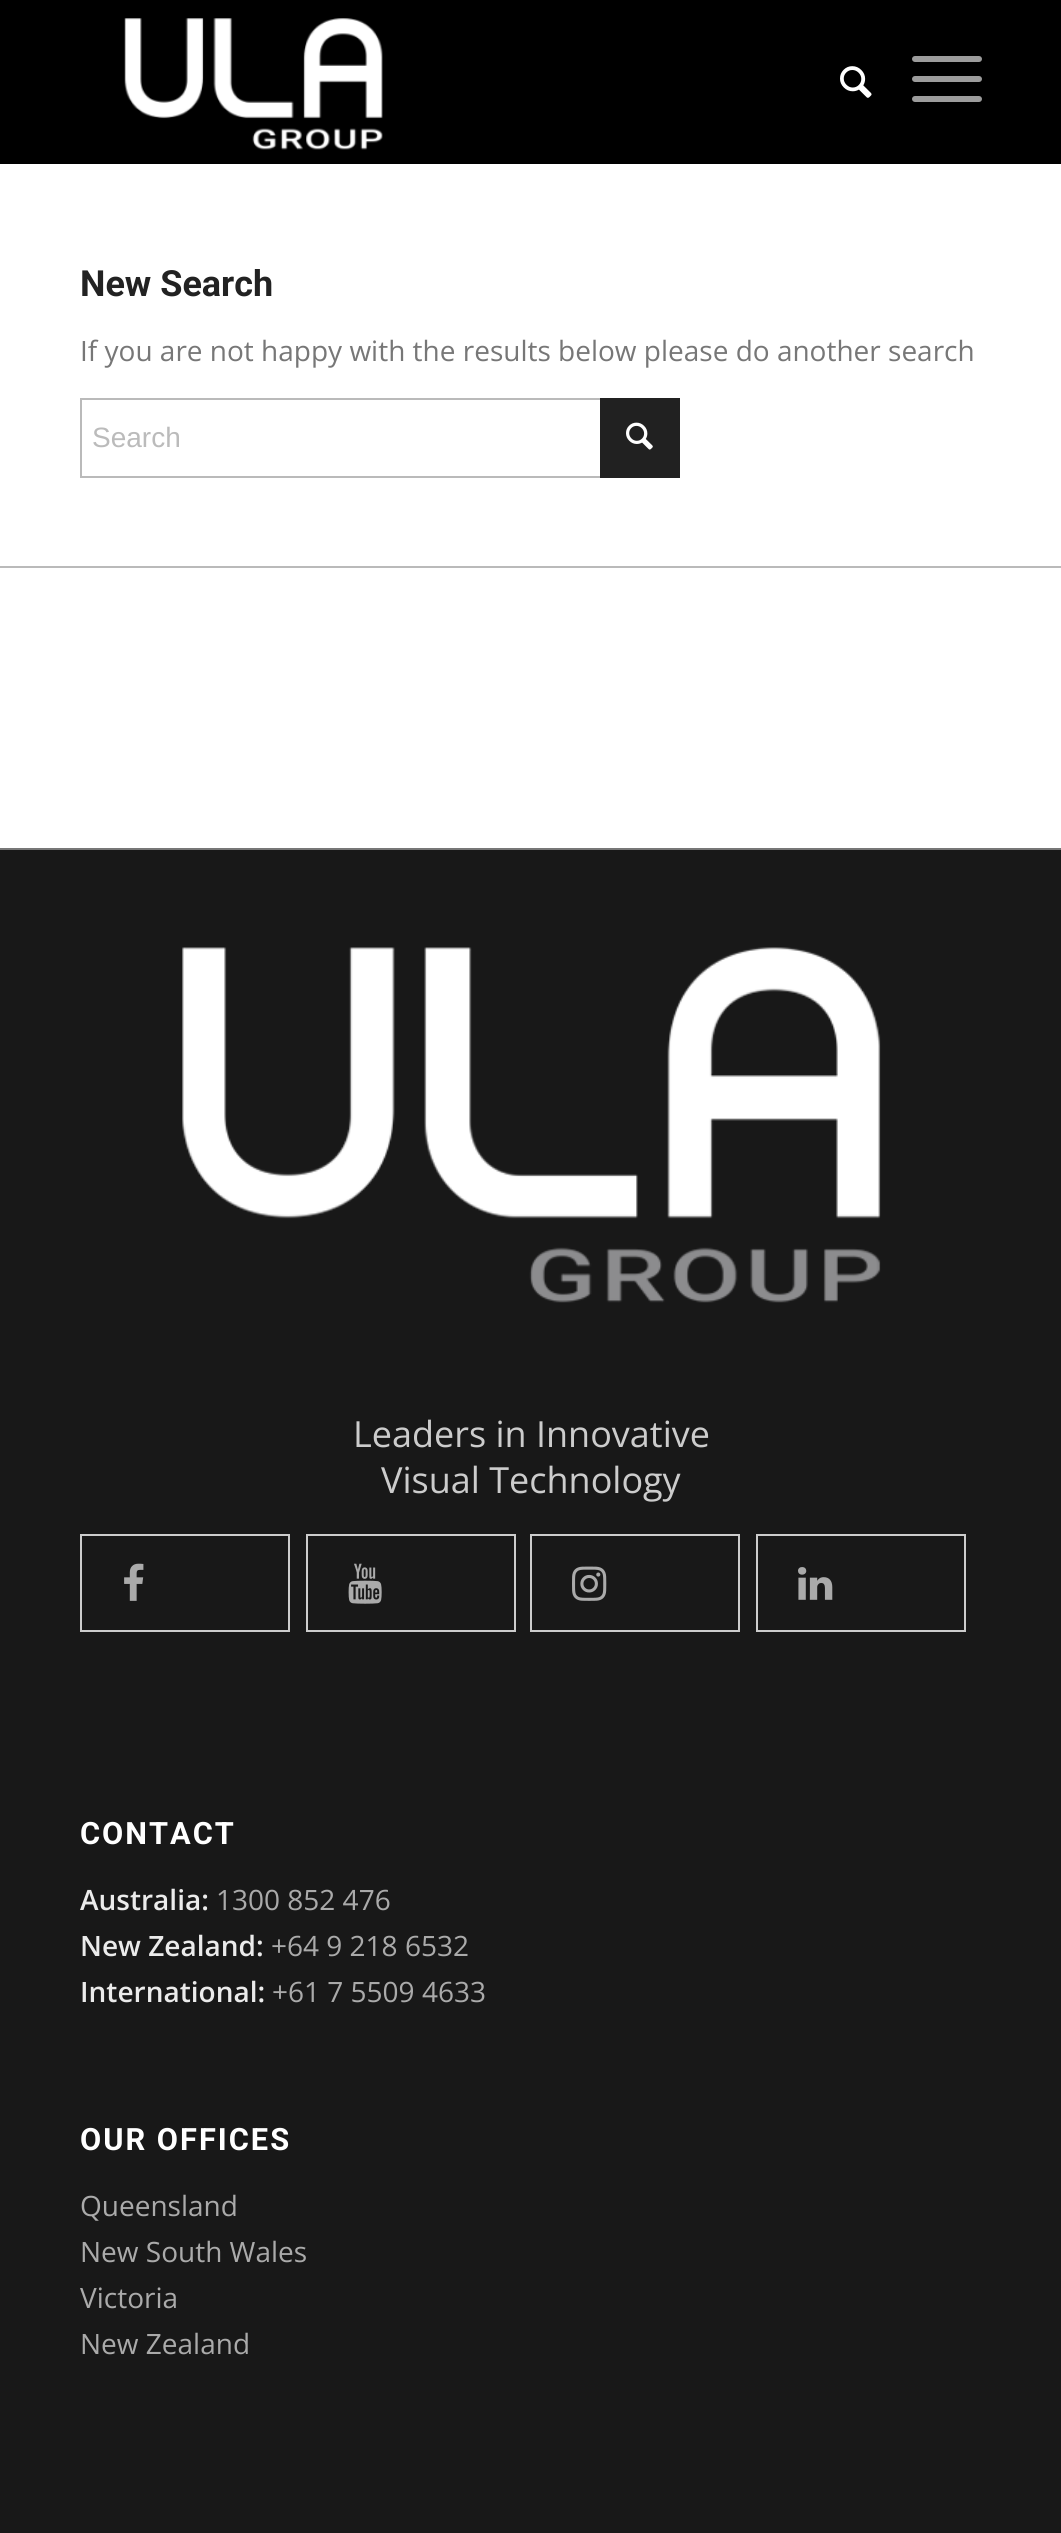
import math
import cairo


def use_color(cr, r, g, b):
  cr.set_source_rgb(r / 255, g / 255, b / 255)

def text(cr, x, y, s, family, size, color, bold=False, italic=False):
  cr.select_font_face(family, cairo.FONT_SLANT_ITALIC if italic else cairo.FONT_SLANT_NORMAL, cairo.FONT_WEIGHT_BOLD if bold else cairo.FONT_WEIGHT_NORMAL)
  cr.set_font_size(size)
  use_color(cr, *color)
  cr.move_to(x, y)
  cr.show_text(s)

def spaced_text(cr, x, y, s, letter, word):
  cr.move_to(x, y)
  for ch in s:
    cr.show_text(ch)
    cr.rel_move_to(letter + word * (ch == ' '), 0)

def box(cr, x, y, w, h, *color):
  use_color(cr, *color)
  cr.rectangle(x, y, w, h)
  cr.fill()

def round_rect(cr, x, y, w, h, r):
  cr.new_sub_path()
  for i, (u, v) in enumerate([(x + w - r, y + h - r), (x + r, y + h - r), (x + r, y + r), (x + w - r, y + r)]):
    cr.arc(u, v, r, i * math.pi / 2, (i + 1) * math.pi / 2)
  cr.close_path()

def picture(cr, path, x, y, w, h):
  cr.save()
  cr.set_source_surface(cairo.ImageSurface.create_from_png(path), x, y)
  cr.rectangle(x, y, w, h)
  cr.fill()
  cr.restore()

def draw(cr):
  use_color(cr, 255, 255, 255)
  cr.paint()
  box(cr, 0, 0, 1061, 164, 0, 0, 0)
  picture(cr, "img_01.png", 124, 18, 259, 132)
  picture(cr, "img_02.png", 840, 66, 32, 32)
  use_color(cr, 156, 156, 156)
  round_rect(cr, 912, 76, 70, 6, 3)
  cr.fill()
  round_rect(cr, 912, 56, 70, 6, 3)
  cr.fill()
  round_rect(cr, 912, 96, 70, 6, 3)
  cr.fill()
  cr.rectangle(81, 399, 598, 78)
  use_color(cr, 186, 186, 186)
  cr.stroke()
  box(cr, 600, 398, 80, 80, 33, 33, 33)
  picture(cr, "img_03.png", 626, 422, 27, 28)
  box(cr, 0, 566, 1061, 2, 186, 186, 186)
  box(cr, 0, 850, 1061, 1683, 24, 24, 24)
  box(cr, 0, 848, 1061, 2, 119, 119, 119)
  picture(cr, "img_04.png", 182, 947, 699, 356)
  cr.rectangle(81, 1535, 208, 96)
  use_color(cr, 204, 204, 204)
  cr.stroke()
  picture(cr, "img_05.png", 124, 1563, 20, 38)
  cr.rectangle(307, 1535, 208, 96)
  cr.stroke()
  picture(cr, "img_06.png", 348, 1563, 34, 41)
  cr.rectangle(531, 1535, 208, 96)
  cr.stroke()
  picture(cr, "img_07.png", 572, 1566, 35, 35)
  cr.rectangle(757, 1535, 208, 96)
  cr.stroke()
  picture(cr, "img_08.png", 798, 1567, 35, 33)
  text(cr, 80, 296, "New Search", "Roboto", 36, (34, 34, 34), bold=True)
  text(cr, 80, 361, "If you are not happy with the results below please do another search", "Open Sans", 28, (119, 119, 119))
  text(cr, 92, 447, "Search", "Liberation Sans", 28, (187, 187, 187))
  text(cr, 353, 1447, "Leaders in Innovative", "Open Sans", 36, (204, 204, 204))
  text(cr, 381, 1493, "Visual Technology", "Open Sans", 36, (204, 204, 204))
  cr.select_font_face("Roboto", cairo.FONT_SLANT_NORMAL, cairo.FONT_WEIGHT_BOLD)
  cr.set_font_size(30.75)
  use_color(cr, 255, 255, 255)
  spaced_text(cr, 80, 1844, "CONTACT", 2, 0)
  text(cr, 80, 1910, "Australia:", "Open Sans SemiBold", 28, (235, 235, 235))
  text(cr, 216, 1910, "1300 852 476", "Open Sans", 28, (170, 170, 170))
  text(cr, 80, 1956, "New Zealand:", "Open Sans SemiBold", 28, (235, 235, 235))
  text(cr, 271, 1956, "+64 9 218 6532", "Open Sans", 28, (170, 170, 170))
  text(cr, 80, 2002, "International:", "Open Sans SemiBold", 28, (235, 235, 235))
  text(cr, 272, 2002, "+61 7 5509 4633", "Open Sans", 28, (170, 170, 170))
  cr.select_font_face("Roboto", cairo.FONT_SLANT_NORMAL, cairo.FONT_WEIGHT_BOLD)
  cr.set_font_size(30.75)
  use_color(cr, 255, 255, 255)
  spaced_text(cr, 80, 2150, "OUR OFFICES", 2, 0)
  text(cr, 80, 2216, "Queensland", "Open Sans", 28, (170, 170, 170))
  text(cr, 80, 2262, "New South Wales", "Open Sans", 28, (170, 170, 170))
  text(cr, 80, 2308, "Victoria", "Open Sans", 28, (170, 170, 170))
  text(cr, 80, 2354, "New Zealand", "Open Sans", 28, (170, 170, 170))


surface = cairo.ImageSurface(cairo.FORMAT_RGB24, 1061, 2533)
cr = cairo.Context(surface)
options = cairo.FontOptions()
options.set_hint_metrics(cairo.HINT_METRICS_OFF)
options.set_hint_style(cairo.HINT_STYLE_NONE)
cr.set_font_options(options)
cr.set_miter_limit(4)
draw(cr)
surface.write_to_png("out.png")
